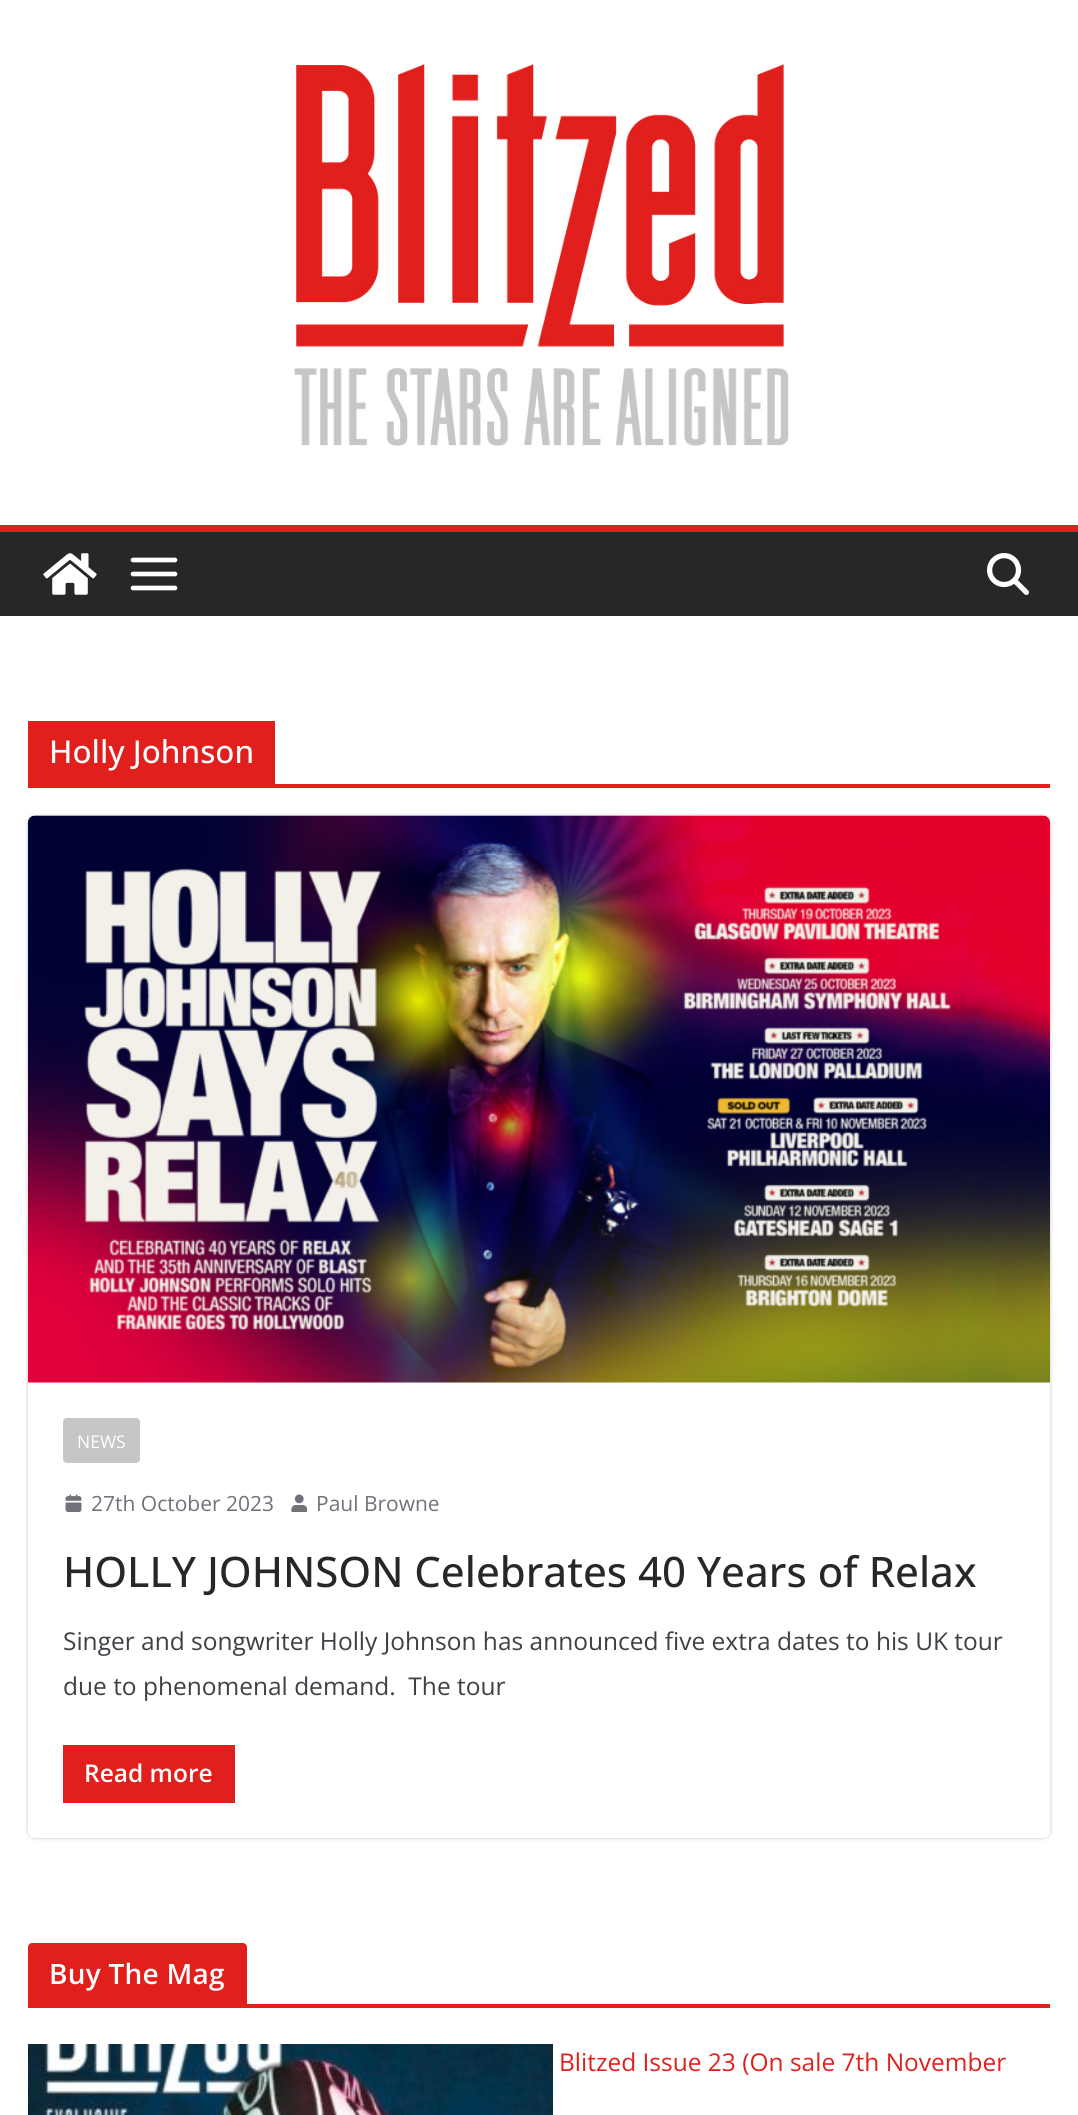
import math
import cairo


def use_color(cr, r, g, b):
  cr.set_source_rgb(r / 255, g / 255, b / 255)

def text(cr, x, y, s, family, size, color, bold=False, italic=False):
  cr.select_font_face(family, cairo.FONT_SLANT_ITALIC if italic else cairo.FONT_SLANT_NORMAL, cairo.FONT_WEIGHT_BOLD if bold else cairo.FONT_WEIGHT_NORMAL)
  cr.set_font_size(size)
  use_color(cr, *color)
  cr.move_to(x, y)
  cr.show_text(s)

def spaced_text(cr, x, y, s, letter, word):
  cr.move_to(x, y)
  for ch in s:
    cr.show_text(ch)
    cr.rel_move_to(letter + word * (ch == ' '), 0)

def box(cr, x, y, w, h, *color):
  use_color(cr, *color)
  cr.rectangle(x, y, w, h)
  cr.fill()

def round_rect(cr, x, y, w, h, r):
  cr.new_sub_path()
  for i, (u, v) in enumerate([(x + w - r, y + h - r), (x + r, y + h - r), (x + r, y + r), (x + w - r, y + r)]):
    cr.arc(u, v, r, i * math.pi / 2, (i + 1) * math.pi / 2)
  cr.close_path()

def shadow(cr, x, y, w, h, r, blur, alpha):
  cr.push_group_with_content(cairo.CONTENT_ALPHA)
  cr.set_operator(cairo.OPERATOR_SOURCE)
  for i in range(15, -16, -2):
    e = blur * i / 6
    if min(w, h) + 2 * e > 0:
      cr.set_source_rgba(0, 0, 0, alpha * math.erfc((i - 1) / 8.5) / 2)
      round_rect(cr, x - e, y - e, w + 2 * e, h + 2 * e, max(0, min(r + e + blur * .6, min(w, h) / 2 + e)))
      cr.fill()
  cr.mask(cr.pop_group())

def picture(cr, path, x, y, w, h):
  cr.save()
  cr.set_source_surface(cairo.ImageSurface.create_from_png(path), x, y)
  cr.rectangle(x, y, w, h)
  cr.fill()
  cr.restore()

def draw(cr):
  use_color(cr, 255, 255, 255)
  cr.paint()
  picture(cr, "img_01.png", 294, 64, 495, 382)
  box(cr, 0, 532, 1078, 84, 39, 39, 42)
  box(cr, 0, 525, 1078, 7, 225, 31, 29)
  picture(cr, "img_02.png", 43, 553, 54, 42)
  picture(cr, "img_03.png", 130, 557, 48, 34)
  picture(cr, "img_04.png", 987, 553, 42, 42)
  box(cr, 28, 784, 1022, 4, 225, 31, 29)
  box(cr, 28, 721, 247, 63, 225, 31, 29)
  cr.save()
  cr.set_fill_rule(cairo.FILL_RULE_EVEN_ODD)
  cr.new_path()
  cr.move_to(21, 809)
  cr.line_to(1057, 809)
  cr.line_to(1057, 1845)
  cr.line_to(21, 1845)
  cr.close_path()
  cr.move_to(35, 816)
  cr.line_to(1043, 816)
  cr.curve_to(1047, 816, 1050, 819, 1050, 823)
  cr.line_to(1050, 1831)
  cr.curve_to(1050, 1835, 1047, 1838, 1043, 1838)
  cr.line_to(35, 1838)
  cr.curve_to(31, 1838, 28, 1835, 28, 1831)
  cr.line_to(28, 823)
  cr.curve_to(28, 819, 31, 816, 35, 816)
  cr.close_path()
  cr.clip()
  use_color(cr, 0, 0, 0)
  shadow(cr, 28, 816, 1022, 1022, 7, 2, 0.24)
  cr.restore()
  picture(cr, "img_05.png", 28, 815, 1022, 568)
  use_color(cr, 198, 198, 198)
  round_rect(cr, 63, 1418, 77, 45, 4)
  cr.fill()
  picture(cr, "img_06.png", 65, 1494, 17, 18)
  picture(cr, "img_07.png", 291, 1494, 17, 18)
  box(cr, 63, 1745, 172, 58, 225, 31, 29)
  box(cr, 28, 2004, 1022, 4, 225, 31, 29)
  cr.new_path()
  cr.move_to(32, 1943)
  cr.line_to(243, 1943)
  cr.curve_to(245, 1943, 247, 1945, 247, 1947)
  cr.line_to(247, 2004)
  cr.line_to(28, 2004)
  cr.line_to(28, 1947)
  cr.curve_to(28, 1945, 30, 1943, 32, 1943)
  cr.close_path()
  cr.fill()
  picture(cr, "img_08.png", 28, 2044, 525, 71)
  text(cr, 49, 763, "Holly Johnson", "Open Sans Medium", 31.5, (255, 255, 255))
  text(cr, 77, 1448, "NEWS", "Open Sans", 17.5, (255, 255, 255))
  text(cr, 91, 1511, "27th October 2023", "Open Sans", 21, (113, 113, 122))
  text(cr, 316, 1511, "Paul Browne", "Open Sans", 21, (113, 113, 122))
  text(cr, 63, 1587, "HOLLY JOHNSON Celebrates 40 Years of Relax", "Open Sans Medium", 42, (39, 39, 42))
  text(cr, 63, 1650, "Singer and songwriter Holly Johnson has announced five extra dates to his UK tour", "Open Sans", 24.5, (63, 63, 70))
  text(cr, 63, 1695, "due to phenomenal demand.  The tour", "Open Sans", 24.5, (63, 63, 70))
  text(cr, 84, 1782, "Read more", "Open Sans SemiBold", 24.5, (255, 255, 255))
  cr.set_font_size(28)
  spaced_text(cr, 49, 1984, "Buy The Mag", 0.25, 0)
  text(cr, 559, 2071, "Blitzed Issue 23 (On sale 7th November", "Open Sans", 24.5, (225, 31, 29))


surface = cairo.ImageSurface(cairo.FORMAT_RGB24, 1078, 2115)
cr = cairo.Context(surface)
options = cairo.FontOptions()
options.set_hint_metrics(cairo.HINT_METRICS_OFF)
options.set_hint_style(cairo.HINT_STYLE_NONE)
cr.set_font_options(options)
cr.set_miter_limit(4)
draw(cr)
surface.write_to_png("out.png")
